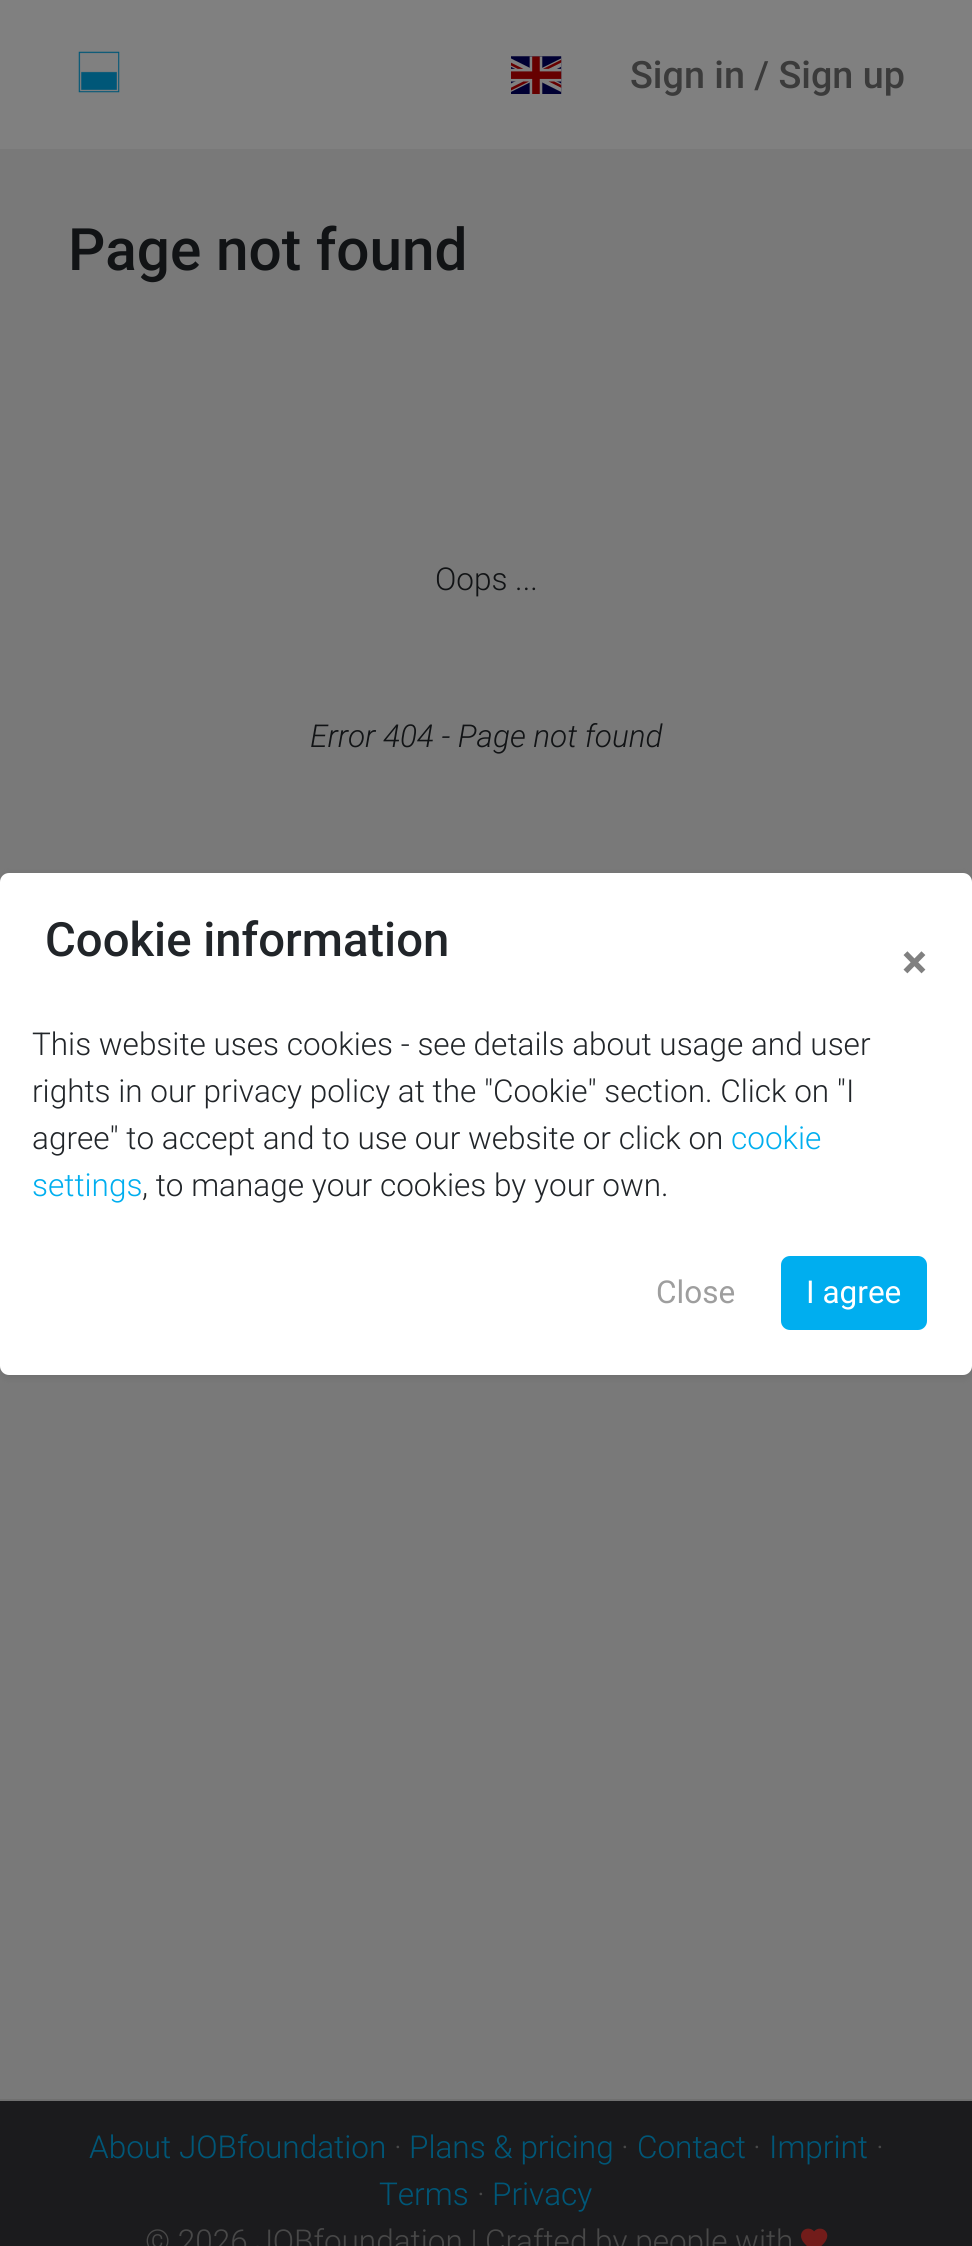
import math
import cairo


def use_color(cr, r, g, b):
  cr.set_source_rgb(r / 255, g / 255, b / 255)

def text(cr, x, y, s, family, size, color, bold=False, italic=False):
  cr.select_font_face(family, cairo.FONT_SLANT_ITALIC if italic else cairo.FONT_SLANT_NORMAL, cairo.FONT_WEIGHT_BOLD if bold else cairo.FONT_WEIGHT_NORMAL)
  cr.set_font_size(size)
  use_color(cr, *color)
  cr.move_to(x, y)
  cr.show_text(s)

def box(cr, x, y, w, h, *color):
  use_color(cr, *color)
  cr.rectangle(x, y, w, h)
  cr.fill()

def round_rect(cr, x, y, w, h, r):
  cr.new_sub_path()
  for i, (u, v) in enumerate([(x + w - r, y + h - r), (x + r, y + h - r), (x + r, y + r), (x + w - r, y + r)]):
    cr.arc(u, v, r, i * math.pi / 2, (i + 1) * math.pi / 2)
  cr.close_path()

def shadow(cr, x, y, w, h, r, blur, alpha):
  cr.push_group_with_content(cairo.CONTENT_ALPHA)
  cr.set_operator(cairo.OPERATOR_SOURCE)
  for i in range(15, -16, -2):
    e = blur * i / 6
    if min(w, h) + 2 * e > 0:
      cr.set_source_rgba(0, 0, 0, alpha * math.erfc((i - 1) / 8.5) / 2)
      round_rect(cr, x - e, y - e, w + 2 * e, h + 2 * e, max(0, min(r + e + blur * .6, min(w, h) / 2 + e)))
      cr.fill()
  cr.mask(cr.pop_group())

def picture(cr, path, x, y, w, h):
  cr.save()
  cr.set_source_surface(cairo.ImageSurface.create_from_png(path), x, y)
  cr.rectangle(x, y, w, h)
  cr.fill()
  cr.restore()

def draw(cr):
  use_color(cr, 27, 27, 29)
  cr.paint()
  box(cr, 0, 0, 972, 149, 128, 128, 128)
  picture(cr, "img_01.png", 78, 51, 42, 42)
  picture(cr, "img_02.png", 511, 56, 51, 38)
  box(cr, 0, 149, 972, 1950, 121, 121, 121)
  use_color(cr, 0, 0, 0)
  shadow(cr, 0, 875, 972, 502, 9, 4.5, 0.1)
  use_color(cr, 255, 255, 255)
  round_rect(cr, 0, 873, 972, 502, 9)
  cr.fill()
  use_color(cr, 0, 174, 239)
  round_rect(cr, 782, 1257, 144, 72, 8)
  cr.fill_preserve()
  cr.stroke()
  box(cr, 0, 2099, 972, 2, 112, 112, 112)
  picture(cr, "img_03.png", 801, 2228, 27, 18)
  text(cr, 630, 88, "Sign in / Sign up", "Roboto Medium", 37.75, (59, 59, 59))
  text(cr, 68, 270, "Page not found", "Roboto Medium", 58.5, (17, 19, 21))
  text(cr, 435, 590, "Oops ...", "Roboto Light", 31.5, (17, 19, 21))
  text(cr, 310, 747, "Error 404 - Page not found", "Roboto Light", 31.5, (17, 19, 21), italic=True)
  text(cr, 45, 956, "Cookie information", "Roboto Medium", 47.25, (33, 37, 41))
  text(cr, 902, 978, "×", "Roboto", 47.25, (128, 128, 128), bold=True)
  text(cr, 32, 1055, "This website uses cookies - see details about usage and user", "Roboto Light", 31.5, (33, 37, 41))
  text(cr, 32, 1102, "rights in our privacy policy at the \"Cookie\" section. Click on \"I", "Roboto Light", 31.5, (33, 37, 41))
  text(cr, 32, 1149, "agree\" to accept and to use our website or click on", "Roboto Light", 31.5, (33, 37, 41))
  text(cr, 731, 1149, "cookie", "Roboto Light", 31.5, (0, 174, 239))
  text(cr, 32, 1196, "settings", "Roboto Light", 31.5, (0, 174, 239))
  text(cr, 142, 1196, ", to manage your cookies by your own.", "Roboto Light", 31.5, (33, 37, 41))
  text(cr, 656, 1303, "Close", "Roboto", 31.5, (158, 158, 158))
  text(cr, 806, 1303, "I agree", "Roboto", 31.5, (255, 255, 255))
  text(cr, 89, 2158, "About JOBfoundation", "Roboto Light", 31.5, (0, 87, 120))
  text(cr, 394, 2158, "·", "Roboto Light", 31.5, (72, 72, 72))
  text(cr, 409, 2158, "Plans & pricing", "Roboto Light", 31.5, (0, 87, 120))
  text(cr, 621, 2158, "·", "Roboto Light", 31.5, (72, 72, 72))
  text(cr, 637, 2158, "Contact", "Roboto Light", 31.5, (0, 87, 120))
  text(cr, 753, 2158, "·", "Roboto Light", 31.5, (72, 72, 72))
  text(cr, 769, 2158, "Imprint", "Roboto Light", 31.5, (0, 87, 120))
  text(cr, 876, 2158, "·", "Roboto Light", 31.5, (72, 72, 72))
  text(cr, 379, 2205, "Terms", "Roboto Light", 31.5, (0, 87, 120))
  text(cr, 477, 2205, "·", "Roboto Light", 31.5, (72, 72, 72))
  text(cr, 492, 2205, "Privacy", "Roboto Light", 31.5, (0, 87, 120))
  text(cr, 145, 2252, "© 2026 JOBfoundation | Crafted by people with", "Roboto Light", 31.5, (72, 72, 72))


surface = cairo.ImageSurface(cairo.FORMAT_RGB24, 972, 2246)
cr = cairo.Context(surface)
options = cairo.FontOptions()
options.set_hint_metrics(cairo.HINT_METRICS_OFF)
options.set_hint_style(cairo.HINT_STYLE_NONE)
cr.set_font_options(options)
cr.set_miter_limit(4)
draw(cr)
surface.write_to_png("out.png")
